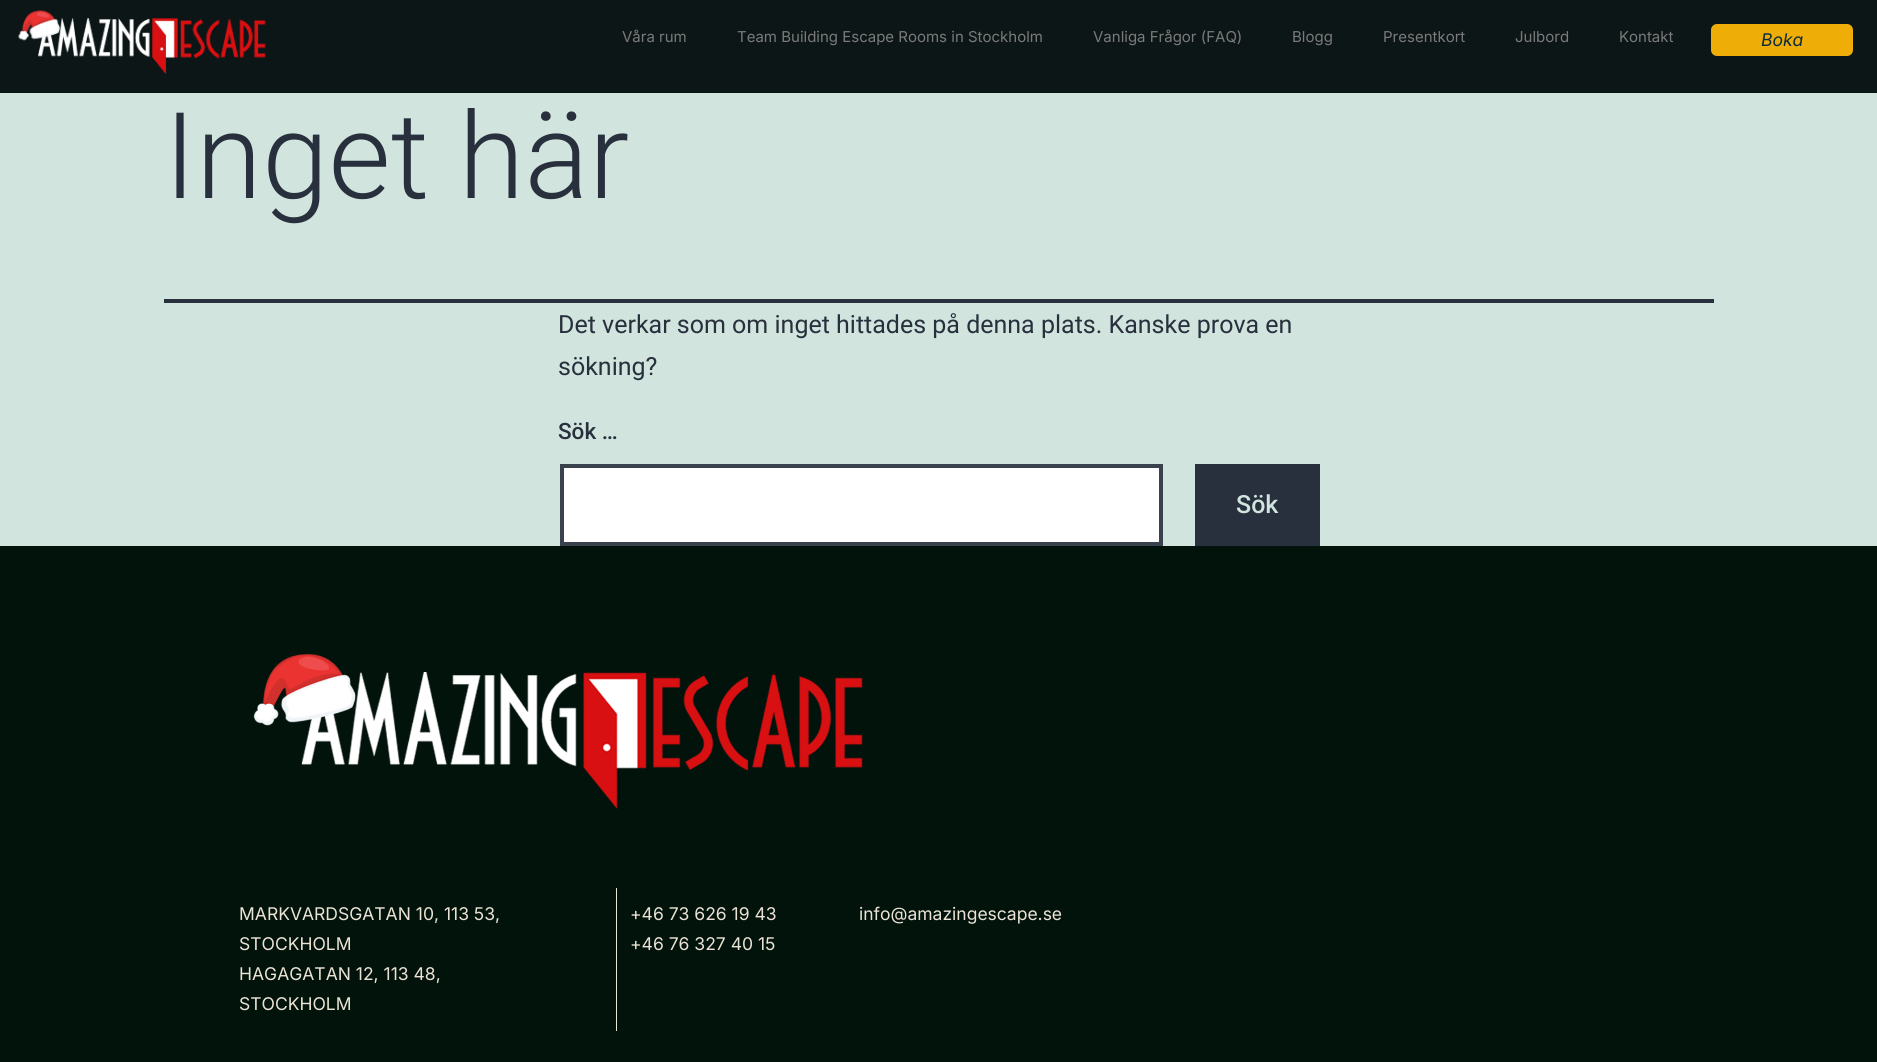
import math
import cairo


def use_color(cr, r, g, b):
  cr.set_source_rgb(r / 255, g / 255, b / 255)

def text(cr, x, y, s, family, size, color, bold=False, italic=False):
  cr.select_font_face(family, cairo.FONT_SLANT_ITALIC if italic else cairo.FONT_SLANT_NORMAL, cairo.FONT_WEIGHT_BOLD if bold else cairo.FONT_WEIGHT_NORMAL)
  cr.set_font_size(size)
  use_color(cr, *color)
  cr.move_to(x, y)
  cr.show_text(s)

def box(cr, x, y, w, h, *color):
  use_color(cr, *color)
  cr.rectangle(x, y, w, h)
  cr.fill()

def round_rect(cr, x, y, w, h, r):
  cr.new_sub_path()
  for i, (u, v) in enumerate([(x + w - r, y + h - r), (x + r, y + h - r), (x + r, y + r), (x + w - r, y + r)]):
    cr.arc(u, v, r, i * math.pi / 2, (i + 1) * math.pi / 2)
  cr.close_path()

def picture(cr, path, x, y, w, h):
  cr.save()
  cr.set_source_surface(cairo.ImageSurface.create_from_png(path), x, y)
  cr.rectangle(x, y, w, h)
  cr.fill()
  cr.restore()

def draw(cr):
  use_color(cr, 209, 228, 221)
  cr.paint()
  box(cr, 0, 0, 1877, 93, 13, 22, 23)
  picture(cr, "img_01.png", 18, 10, 248, 64)
  use_color(cr, 238, 173, 7)
  round_rect(cr, 1711, 24, 142, 32, 6)
  cr.fill()
  box(cr, 164, 299, 1550, 4, 40, 48, 61)
  use_color(cr, 255, 255, 255)
  cr.rectangle(562, 466, 599, 78)
  cr.fill_preserve()
  use_color(cr, 57, 65, 77)
  cr.set_line_width(4)
  cr.stroke()
  box(cr, 1195, 464, 125, 82, 40, 48, 61)
  box(cr, 0, 546, 1877, 516, 2, 19, 12)
  picture(cr, "img_02.png", 253, 654, 610, 155)
  box(cr, 616, 888, 1, 143, 235, 227, 213)
  text(cr, 622, 42, "Våra rum", "Inter", 15, (122, 122, 122))
  text(cr, 737, 42, "Team Building Escape Rooms in Stockholm", "Inter", 15, (122, 122, 122))
  text(cr, 1093, 42, "Vanliga Frågor (FAQ)", "Inter", 15, (122, 122, 122))
  text(cr, 1292, 42, "Blogg", "Inter", 15, (122, 122, 122))
  text(cr, 1383, 42, "Presentkort", "Inter", 15, (122, 122, 122))
  text(cr, 1515, 42, "Julbord", "Inter", 15, (122, 122, 122))
  text(cr, 1619, 42, "Kontakt", "Inter", 15, (122, 122, 122))
  text(cr, 1761, 46, "Boka", "Inter", 17.5, (10, 44, 64), italic=True)
  text(cr, 164, 198, "Inget här", "Roboto Light", 120, (40, 48, 61))
  text(cr, 558, 333, "Det verkar som om inget hittades på denna plats. Kanske prova en", "Roboto", 25, (40, 48, 61))
  text(cr, 558, 375, "sökning?", "Roboto", 25, (40, 48, 61))
  text(cr, 558, 439, "Sök …", "Roboto Medium", 22.5, (40, 48, 61))
  text(cr, 1236, 513, "Sök", "Roboto Medium", 25, (209, 228, 221))
  text(cr, 239, 920, "MARKVARDSGATAN 10, 113 53,", "Inter", 17.5, (235, 227, 213))
  text(cr, 239, 950, "STOCKHOLM", "Inter", 17.5, (235, 227, 213))
  text(cr, 239, 980, "HAGAGATAN 12, 113 48,", "Inter", 17.5, (235, 227, 213))
  text(cr, 239, 1010, "STOCKHOLM", "Inter", 17.5, (235, 227, 213))
  text(cr, 630, 920, "+46 73 626 19 43", "Inter", 17.5, (235, 227, 213))
  text(cr, 630, 950, "+46 76 327 40 15", "Inter", 17.5, (235, 227, 213))
  text(cr, 859, 920, "info@amazingescape.se", "Inter", 17.5, (235, 227, 213))


surface = cairo.ImageSurface(cairo.FORMAT_RGB24, 1877, 1062)
cr = cairo.Context(surface)
options = cairo.FontOptions()
options.set_hint_metrics(cairo.HINT_METRICS_OFF)
options.set_hint_style(cairo.HINT_STYLE_NONE)
cr.set_font_options(options)
cr.set_miter_limit(4)
draw(cr)
surface.write_to_png("out.png")
